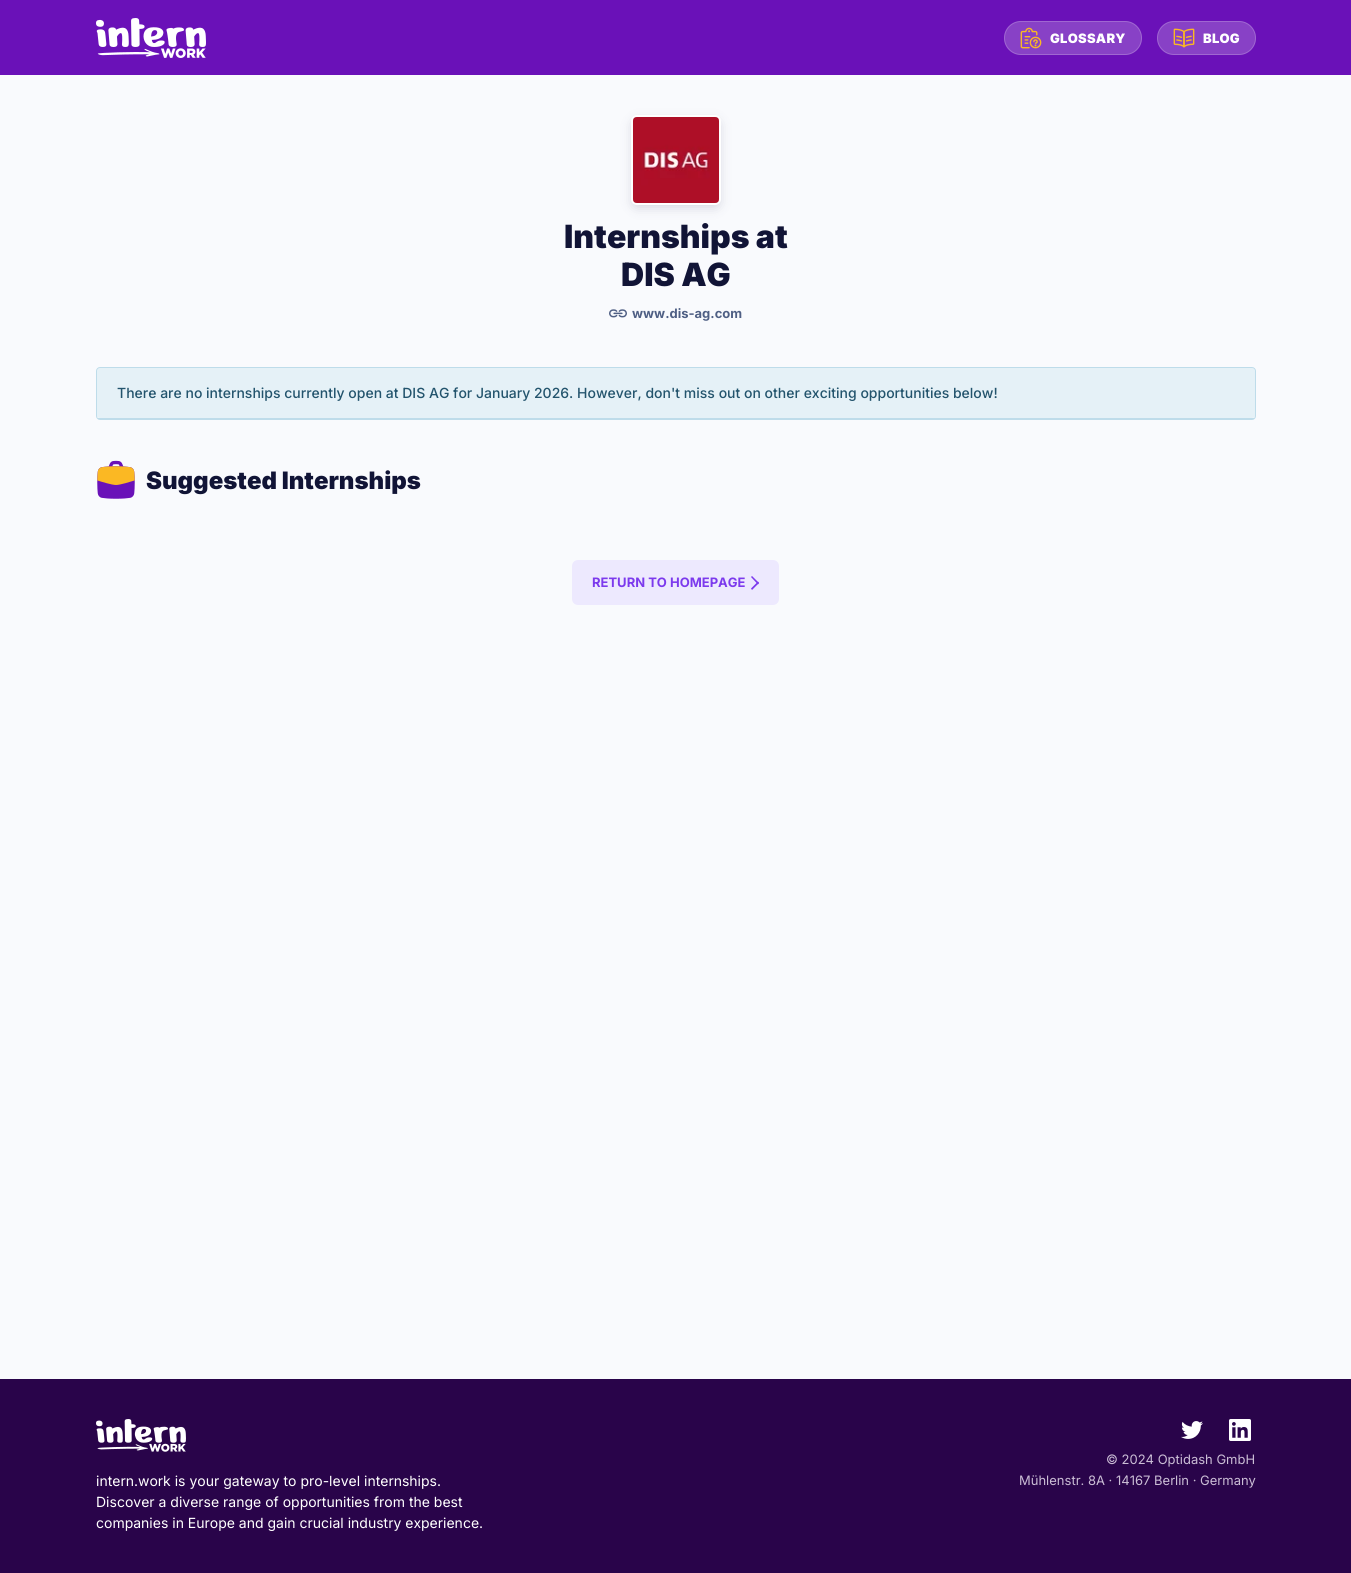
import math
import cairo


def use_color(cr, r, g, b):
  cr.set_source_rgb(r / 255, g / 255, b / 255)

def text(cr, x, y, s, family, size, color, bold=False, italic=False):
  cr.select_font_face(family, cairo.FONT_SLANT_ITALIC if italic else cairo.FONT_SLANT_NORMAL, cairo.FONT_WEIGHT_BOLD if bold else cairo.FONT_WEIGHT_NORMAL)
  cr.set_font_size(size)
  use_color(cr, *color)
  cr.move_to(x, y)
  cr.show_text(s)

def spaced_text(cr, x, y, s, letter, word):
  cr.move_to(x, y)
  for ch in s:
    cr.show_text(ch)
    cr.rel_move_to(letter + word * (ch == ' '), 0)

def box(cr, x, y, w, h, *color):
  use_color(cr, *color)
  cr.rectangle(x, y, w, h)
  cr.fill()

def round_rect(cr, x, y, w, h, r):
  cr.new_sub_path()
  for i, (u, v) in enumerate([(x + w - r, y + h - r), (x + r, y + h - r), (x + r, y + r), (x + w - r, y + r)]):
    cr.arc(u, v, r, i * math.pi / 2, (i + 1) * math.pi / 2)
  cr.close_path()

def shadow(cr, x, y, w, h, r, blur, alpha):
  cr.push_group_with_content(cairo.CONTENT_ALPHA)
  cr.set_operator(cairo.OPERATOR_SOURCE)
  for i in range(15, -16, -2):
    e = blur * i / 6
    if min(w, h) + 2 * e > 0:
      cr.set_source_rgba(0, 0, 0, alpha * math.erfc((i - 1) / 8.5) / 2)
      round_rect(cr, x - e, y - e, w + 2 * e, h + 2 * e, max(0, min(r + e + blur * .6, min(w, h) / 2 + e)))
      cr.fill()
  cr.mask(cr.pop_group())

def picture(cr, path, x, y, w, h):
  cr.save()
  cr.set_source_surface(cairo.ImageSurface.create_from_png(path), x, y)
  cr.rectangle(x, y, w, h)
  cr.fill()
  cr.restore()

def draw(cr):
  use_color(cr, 249, 250, 253)
  cr.paint()
  box(cr, 0, 0, 1351, 75, 106, 17, 184)
  picture(cr, "img_01.png", 96, 18, 110, 40)
  use_color(cr, 136, 65, 198)
  round_rect(cr, 1004, 21, 138, 34, 17)
  cr.fill()
  round_rect(cr, 1004.5, 21.5, 137, 33, 16.5)
  cr.set_source_rgba(1, 1, 1, 0.2)
  cr.set_line_width(1)
  cr.stroke()
  picture(cr, "img_02.png", 1020, 27, 22, 22)
  use_color(cr, 136, 65, 198)
  round_rect(cr, 1157, 21, 99, 34, 17)
  cr.fill()
  round_rect(cr, 1157.5, 21.5, 98, 33, 16.5)
  cr.set_source_rgba(1, 1, 1, 0.2)
  cr.stroke()
  picture(cr, "img_03.png", 1173, 28, 22, 20)
  use_color(cr, 50, 50, 93)
  shadow(cr, 633, 121, 86, 86, 4, 6, 0.2)
  round_rect(cr, 632, 116, 88, 88, 5)
  use_color(cr, 255, 255, 255)
  cr.set_line_width(2)
  cr.stroke()
  picture(cr, "img_04.png", 633, 117, 86, 86)
  picture(cr, "img_05.png", 609, 309, 18, 9)
  use_color(cr, 229, 241, 247)
  cr.new_path()
  cr.move_to(100, 368)
  cr.line_to(1252, 368)
  cr.curve_to(1254, 368, 1255, 369, 1255, 371)
  cr.line_to(1255, 416)
  cr.curve_to(1255, 417, 1254, 418, 1252, 418)
  cr.line_to(100, 418)
  cr.curve_to(98, 418, 97, 417, 97, 416)
  cr.line_to(97, 371)
  cr.curve_to(97, 369, 98, 368, 100, 368)
  cr.close_path()
  cr.fill()
  round_rect(cr, 96.5, 367.5, 1159, 52, 3.5)
  use_color(cr, 190, 220, 234)
  cr.set_line_width(1)
  cr.stroke()
  box(cr, 98, 418, 1156, 1, 190, 220, 234)
  picture(cr, "img_06.png", 97, 460, 38, 39)
  use_color(cr, 237, 233, 254)
  round_rect(cr, 572, 560, 207, 45, 6)
  cr.fill()
  use_color(cr, 124, 58, 237)
  cr.new_path()
  cr.move_to(752, 576)
  cr.line_to(759, 583)
  cr.line_to(758, 584.5)
  cr.line_to(751, 577)
  cr.close_path()
  cr.fill()
  cr.new_path()
  cr.move_to(758, 581.5)
  cr.line_to(759, 583)
  cr.line_to(752, 590)
  cr.line_to(751, 588.5)
  cr.close_path()
  cr.fill()
  box(cr, 0, 1379, 1351, 194, 41, 4, 74)
  picture(cr, "img_07.png", 1181, 1421, 22, 18)
  picture(cr, "img_08.png", 1229, 1419, 22, 22)
  picture(cr, "img_09.png", 96, 1419, 90, 33)
  cr.select_font_face("Inter Black")
  cr.set_font_size(13)
  use_color(cr, 255, 255, 255)
  spaced_text(cr, 1050, 43, "GLOSSARY", 0.25, 0)
  spaced_text(cr, 1203, 43, "BLOG", 0.25, 0)
  text(cr, 564, 248, "Internships at", "Inter Black", 32, (17, 20, 54))
  text(cr, 621, 286, "DIS AG", "Inter Black", 32, (17, 20, 54))
  text(cr, 632, 318, "www.dis-ag.com", "Inter", 13, (79, 95, 132), bold=True)
  text(cr, 117, 398, "There are no internships currently open at DIS AG for January 2026. However, don't miss out on other exciting opportunities below!", "Inter Medium", 14, (35, 84, 109))
  text(cr, 146, 489, "Suggested Internships", "Inter Black", 24, (17, 20, 54))
  text(cr, 592, 587, "RETURN TO HOMEPAGE", "Inter", 13, (124, 58, 237), bold=True)
  text(cr, 1106, 1464, "© 2024 Optidash GmbH", "Inter", 13, (202, 189, 213))
  text(cr, 1019, 1485, "Mühlenstr. 8A · 14167 Berlin · Germany", "Inter", 13, (202, 189, 213))
  text(cr, 96, 1486, "intern.work is your gateway to pro-level internships.", "Inter", 14, (255, 255, 255))
  text(cr, 96, 1507, "Discover a diverse range of opportunities from the best", "Inter", 14, (255, 255, 255))
  text(cr, 96, 1528, "companies in Europe and gain crucial industry experience.", "Inter", 14, (255, 255, 255))


surface = cairo.ImageSurface(cairo.FORMAT_RGB24, 1351, 1573)
cr = cairo.Context(surface)
options = cairo.FontOptions()
options.set_hint_metrics(cairo.HINT_METRICS_OFF)
options.set_hint_style(cairo.HINT_STYLE_NONE)
cr.set_font_options(options)
cr.set_miter_limit(4)
draw(cr)
surface.write_to_png("out.png")
